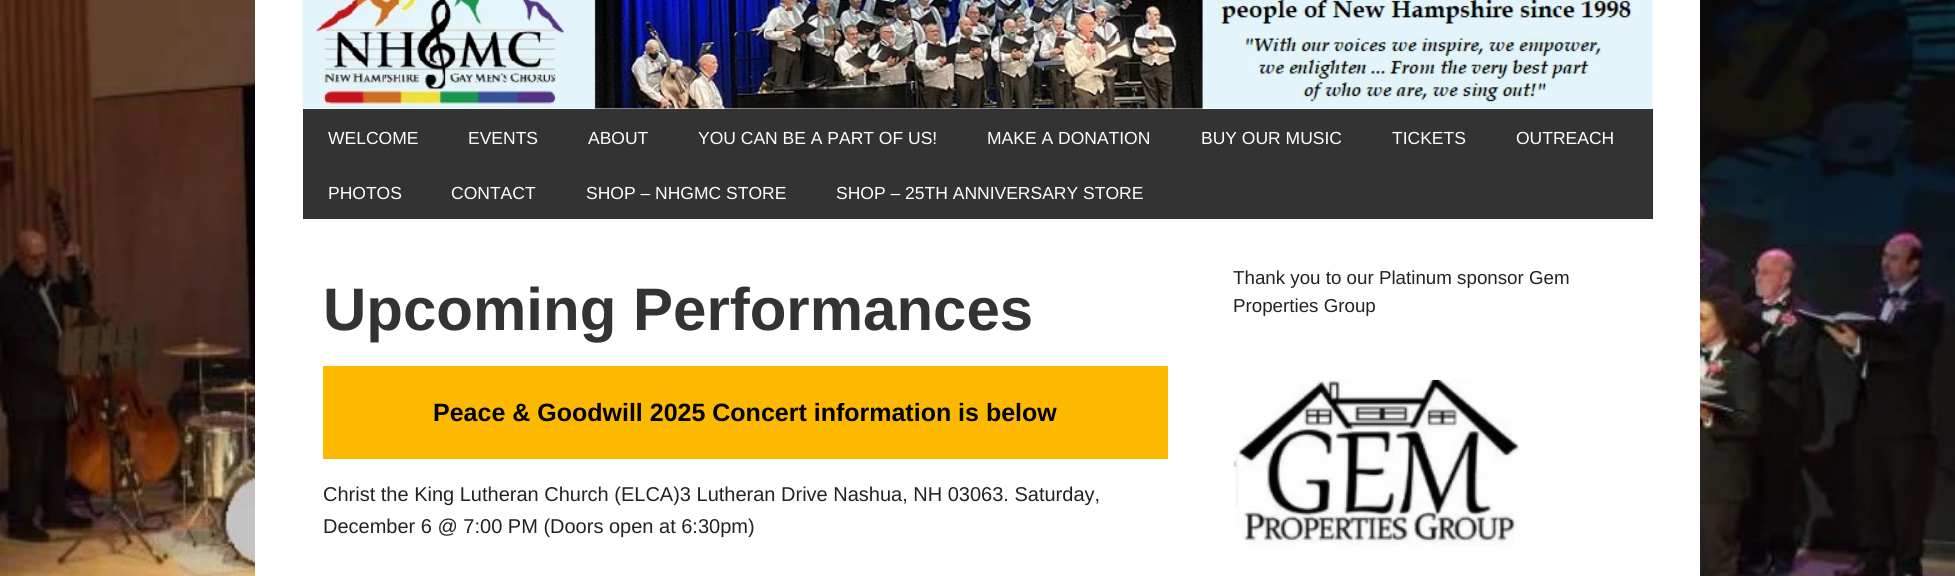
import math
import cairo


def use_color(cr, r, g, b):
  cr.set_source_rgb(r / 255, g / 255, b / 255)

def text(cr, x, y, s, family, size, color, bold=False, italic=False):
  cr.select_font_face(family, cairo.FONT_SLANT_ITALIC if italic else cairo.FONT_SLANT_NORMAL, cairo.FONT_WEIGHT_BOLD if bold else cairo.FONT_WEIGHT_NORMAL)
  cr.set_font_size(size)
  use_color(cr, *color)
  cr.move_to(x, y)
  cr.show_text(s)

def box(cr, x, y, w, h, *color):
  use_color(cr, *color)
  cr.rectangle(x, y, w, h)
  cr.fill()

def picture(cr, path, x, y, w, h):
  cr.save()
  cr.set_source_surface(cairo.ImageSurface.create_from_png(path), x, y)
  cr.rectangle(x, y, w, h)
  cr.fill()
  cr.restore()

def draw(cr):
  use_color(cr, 255, 255, 255)
  cr.paint()
  picture(cr, "img_01.png", 0, 0, 1955, 576)
  box(cr, 255, 0, 1445, 576, 255, 255, 255)
  picture(cr, "img_02.png", 302, 0, 1351, 109)
  box(cr, 303, 109, 1350, 110, 51, 51, 51)
  box(cr, 323, 366, 845, 93, 252, 185, 0)
  picture(cr, "img_03.png", 1234, 379, 286, 167)
  text(cr, 328, 144, "WELCOME", "Liberation Sans", 17.5, (255, 255, 255))
  text(cr, 468, 144, "EVENTS", "Liberation Sans", 17.5, (255, 255, 255))
  text(cr, 588, 144, "ABOUT", "Liberation Sans", 17.5, (255, 255, 255))
  text(cr, 698, 144, "YOU CAN BE A PART OF US!", "Liberation Sans", 17.5, (255, 255, 255))
  text(cr, 987, 144, "MAKE A DONATION", "Liberation Sans", 17.5, (255, 255, 255))
  text(cr, 1201, 144, "BUY OUR MUSIC", "Liberation Sans", 17.5, (255, 255, 255))
  text(cr, 1392, 144, "TICKETS", "Liberation Sans", 17.5, (255, 255, 255))
  text(cr, 1516, 144, "OUTREACH", "Liberation Sans", 17.5, (255, 255, 255))
  text(cr, 328, 199, "PHOTOS", "Liberation Sans", 17.5, (255, 255, 255))
  text(cr, 451, 199, "CONTACT", "Liberation Sans", 17.5, (255, 255, 255))
  text(cr, 586, 199, "SHOP – NHGMC STORE", "Liberation Sans", 17.5, (255, 255, 255))
  text(cr, 836, 199, "SHOP – 25TH ANNIVERSARY STORE", "Liberation Sans", 17.5, (255, 255, 255))
  text(cr, 323, 330, "Upcoming Performances", "Liberation Sans", 60, (51, 51, 51), bold=True)
  text(cr, 433, 421, "Peace & Goodwill 2025 Concert information is below", "Liberation Sans", 25, (0, 0, 0), bold=True)
  text(cr, 323, 501, "Christ the King Lutheran Church (ELCA)3 Lutheran Drive Nashua, NH 03063. Saturday,", "Liberation Sans", 20, (34, 34, 34))
  text(cr, 323, 533, "December 6 @ 7:00 PM (Doors open at 6:30pm)", "Liberation Sans", 20, (34, 34, 34))
  text(cr, 1233, 284, "Thank you to our Platinum sponsor Gem", "Liberation Sans", 18.75, (34, 34, 34))
  text(cr, 1233, 312, "Properties Group", "Liberation Sans", 18.75, (34, 34, 34))


surface = cairo.ImageSurface(cairo.FORMAT_RGB24, 1955, 576)
cr = cairo.Context(surface)
options = cairo.FontOptions()
options.set_hint_metrics(cairo.HINT_METRICS_OFF)
options.set_hint_style(cairo.HINT_STYLE_NONE)
cr.set_font_options(options)
cr.set_miter_limit(4)
draw(cr)
surface.write_to_png("out.png")
